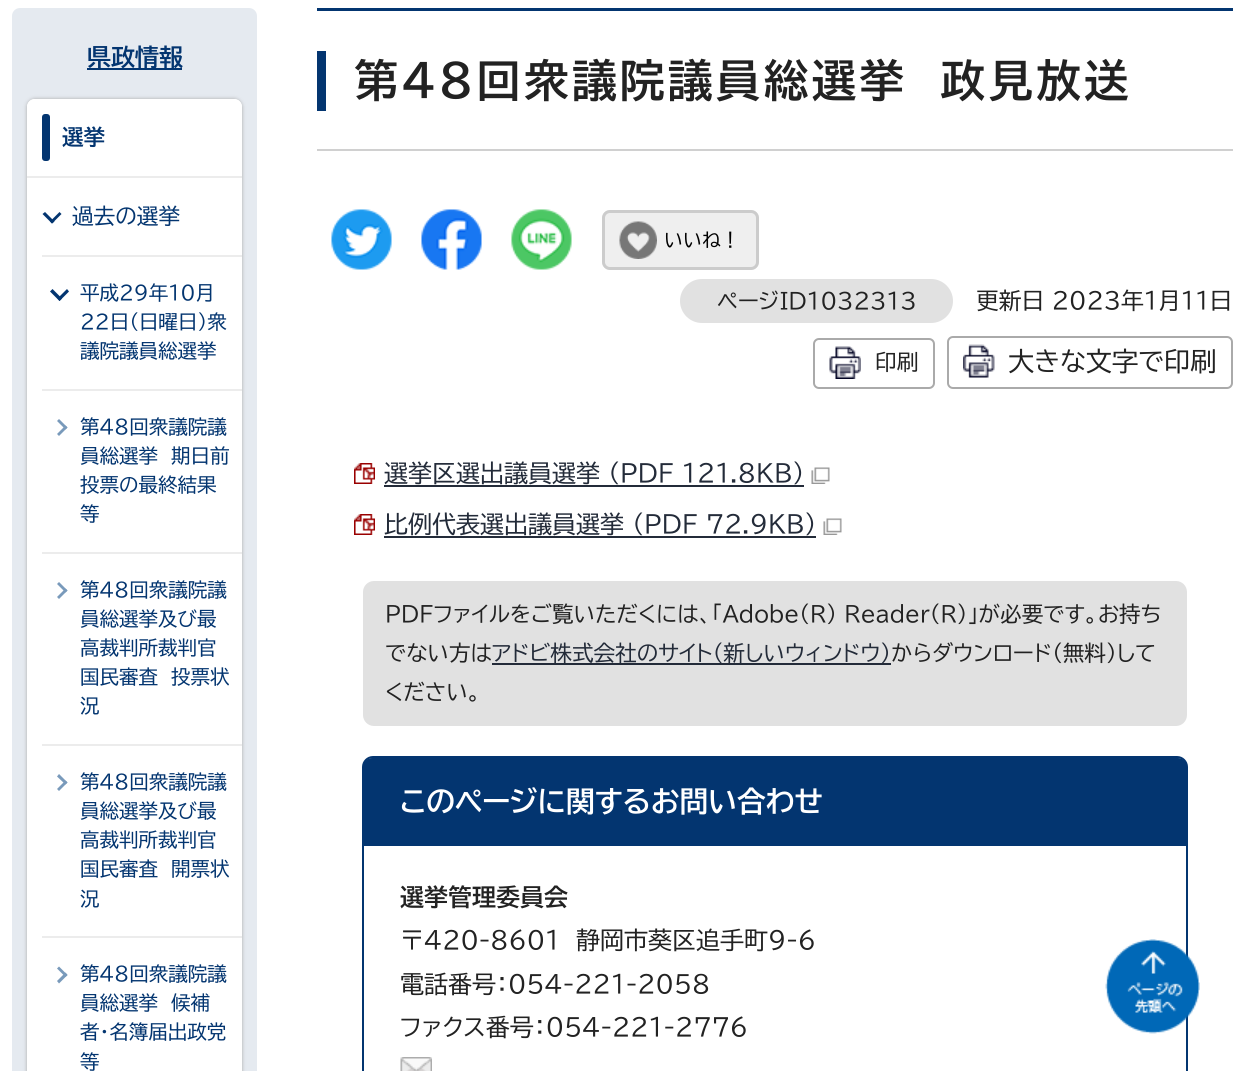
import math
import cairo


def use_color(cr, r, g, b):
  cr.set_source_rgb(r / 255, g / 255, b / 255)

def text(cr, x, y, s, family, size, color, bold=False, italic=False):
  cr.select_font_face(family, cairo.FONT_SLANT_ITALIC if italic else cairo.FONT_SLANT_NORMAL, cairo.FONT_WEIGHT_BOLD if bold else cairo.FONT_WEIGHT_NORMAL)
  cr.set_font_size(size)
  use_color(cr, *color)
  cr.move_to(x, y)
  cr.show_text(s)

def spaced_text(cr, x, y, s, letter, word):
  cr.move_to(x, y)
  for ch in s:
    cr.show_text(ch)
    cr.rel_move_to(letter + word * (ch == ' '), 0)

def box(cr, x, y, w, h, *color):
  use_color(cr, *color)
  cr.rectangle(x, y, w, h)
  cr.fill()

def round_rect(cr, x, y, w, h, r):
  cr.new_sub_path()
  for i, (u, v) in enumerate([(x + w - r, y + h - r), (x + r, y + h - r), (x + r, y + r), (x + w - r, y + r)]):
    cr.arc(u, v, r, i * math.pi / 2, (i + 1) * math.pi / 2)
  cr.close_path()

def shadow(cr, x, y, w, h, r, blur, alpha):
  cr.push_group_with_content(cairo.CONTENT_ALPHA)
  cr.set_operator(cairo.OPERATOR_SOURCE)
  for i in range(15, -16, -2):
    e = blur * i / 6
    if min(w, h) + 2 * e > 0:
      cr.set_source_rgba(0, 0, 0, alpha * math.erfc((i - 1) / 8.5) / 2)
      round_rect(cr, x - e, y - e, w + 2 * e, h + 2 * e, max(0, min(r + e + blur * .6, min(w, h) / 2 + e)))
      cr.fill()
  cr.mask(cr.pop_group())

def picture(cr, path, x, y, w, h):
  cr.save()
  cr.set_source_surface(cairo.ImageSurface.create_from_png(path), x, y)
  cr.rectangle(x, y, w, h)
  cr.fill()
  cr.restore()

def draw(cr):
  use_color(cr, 255, 255, 255)
  cr.paint()
  use_color(cr, 229, 234, 240)
  round_rect(cr, 12, 8, 245, 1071, 8)
  cr.fill()
  box(cr, 87, 68, 95, 2, 3, 53, 112)
  use_color(cr, 170, 170, 170)
  shadow(cr, 27, 99, 215, 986, 8, 2, 1)
  use_color(cr, 255, 255, 255)
  round_rect(cr, 27, 99, 215, 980, 8)
  cr.fill()
  cr.new_path()
  cr.move_to(35, 99)
  cr.line_to(234, 99)
  cr.curve_to(238.5, 99, 242, 102.5, 242, 107)
  cr.line_to(242, 176)
  cr.line_to(27, 176)
  cr.line_to(27, 107)
  cr.curve_to(27, 102.5, 30.5, 99, 35, 99)
  cr.close_path()
  cr.fill()
  use_color(cr, 3, 53, 112)
  round_rect(cr, 42, 114, 8, 47, 3)
  cr.fill()
  box(cr, 27, 176, 215, 2, 236, 236, 236)
  use_color(cr, 3, 53, 112)
  cr.new_path()
  cr.move_to(61.5, 214)
  cr.line_to(52, 223.5)
  cr.line_to(50, 221.5)
  cr.line_to(59.5, 212)
  cr.close_path()
  cr.fill()
  cr.new_path()
  cr.move_to(54.5, 221.5)
  cr.line_to(52, 223.5)
  cr.line_to(42.5, 214)
  cr.line_to(45, 212)
  cr.close_path()
  cr.fill()
  box(cr, 42, 255, 200, 2, 236, 236, 236)
  use_color(cr, 3, 53, 112)
  cr.new_path()
  cr.move_to(69, 291.5)
  cr.line_to(59.5, 301)
  cr.line_to(57.5, 298.5)
  cr.line_to(67, 289)
  cr.close_path()
  cr.fill()
  cr.new_path()
  cr.move_to(62, 298.5)
  cr.line_to(59.5, 301)
  cr.line_to(50, 291.5)
  cr.line_to(52.5, 289)
  cr.close_path()
  cr.fill()
  box(cr, 42, 389, 200, 2, 236, 236, 236)
  use_color(cr, 121, 154, 187)
  cr.new_path()
  cr.move_to(59, 419)
  cr.line_to(67.5, 427.5)
  cr.line_to(65.5, 429.5)
  cr.line_to(57, 421)
  cr.close_path()
  cr.fill()
  cr.new_path()
  cr.move_to(65.5, 425.5)
  cr.line_to(67.5, 427.5)
  cr.line_to(59, 436)
  cr.line_to(57, 434)
  cr.close_path()
  cr.fill()
  box(cr, 42, 552, 200, 2, 236, 236, 236)
  use_color(cr, 121, 154, 187)
  cr.new_path()
  cr.move_to(59, 582)
  cr.line_to(67.5, 590.5)
  cr.line_to(65.5, 592.5)
  cr.line_to(57, 584)
  cr.close_path()
  cr.fill()
  cr.new_path()
  cr.move_to(65.5, 588.5)
  cr.line_to(67.5, 590.5)
  cr.line_to(59, 599)
  cr.line_to(57, 597)
  cr.close_path()
  cr.fill()
  box(cr, 42, 744, 200, 2, 236, 236, 236)
  use_color(cr, 121, 154, 187)
  cr.new_path()
  cr.move_to(59, 774)
  cr.line_to(67.5, 782.5)
  cr.line_to(65.5, 784.5)
  cr.line_to(57, 776.5)
  cr.close_path()
  cr.fill()
  cr.new_path()
  cr.move_to(65.5, 780.5)
  cr.line_to(67.5, 782.5)
  cr.line_to(59, 791)
  cr.line_to(57, 789)
  cr.close_path()
  cr.fill()
  box(cr, 42, 936, 200, 2, 236, 236, 236)
  use_color(cr, 121, 154, 187)
  cr.new_path()
  cr.move_to(59, 966.5)
  cr.line_to(67.5, 975)
  cr.line_to(65.5, 977)
  cr.line_to(57, 968.5)
  cr.close_path()
  cr.fill()
  cr.new_path()
  cr.move_to(65.5, 972.5)
  cr.line_to(67.5, 975)
  cr.line_to(59, 983.5)
  cr.line_to(57, 981)
  cr.close_path()
  cr.fill()
  box(cr, 317, 8, 916, 3, 3, 53, 112)
  box(cr, 317, 149, 916, 2, 208, 208, 208)
  box(cr, 317, 51, 9, 60, 3, 53, 112)
  picture(cr, "img_01.png", 331, 209, 61, 61)
  picture(cr, "img_02.png", 421, 209, 61, 61)
  picture(cr, "img_03.png", 511, 209, 61, 61)
  use_color(cr, 239, 239, 239)
  round_rect(cr, 602, 210, 157, 60, 8)
  cr.fill()
  picture(cr, "img_04.png", 619, 221, 38, 38)
  round_rect(cr, 603.5, 211.5, 154, 57, 6.5)
  use_color(cr, 204, 204, 204)
  cr.set_line_width(3)
  cr.stroke()
  use_color(cr, 225, 225, 225)
  round_rect(cr, 680, 279, 273, 44, 22)
  cr.fill()
  round_rect(cr, 814, 339, 120, 49, 5)
  use_color(cr, 170, 170, 170)
  cr.set_line_width(2)
  cr.stroke()
  picture(cr, "img_05.png", 829, 346, 32, 33)
  round_rect(cr, 948, 337, 284, 51, 5)
  cr.stroke()
  picture(cr, "img_06.png", 963, 344, 32, 34)
  picture(cr, "img_07.png", 354, 463, 21, 21)
  box(cr, 384, 485, 420, 2, 35, 43, 57)
  picture(cr, "img_08.png", 811, 467, 19, 17)
  picture(cr, "img_07.png", 354, 514, 21, 21)
  box(cr, 384, 536, 432, 2, 35, 43, 57)
  picture(cr, "img_08.png", 823, 518, 19, 17)
  use_color(cr, 225, 225, 225)
  round_rect(cr, 363, 581, 824, 145, 11)
  cr.fill()
  box(cr, 492, 663, 399, 2, 35, 43, 57)
  round_rect(cr, 363, 757, 824, 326, 10)
  use_color(cr, 3, 53, 112)
  cr.stroke()
  cr.new_path()
  cr.move_to(372, 758)
  cr.line_to(1178, 758)
  cr.curve_to(1183, 758, 1187, 762, 1187, 767)
  cr.line_to(1187, 846)
  cr.line_to(363, 846)
  cr.line_to(363, 767)
  cr.curve_to(363, 762, 367, 758, 372, 758)
  cr.close_path()
  cr.fill()
  picture(cr, "img_09.png", 400, 1057, 32, 14)
  picture(cr, "img_10.png", 1105, 939, 95, 95)
  text(cr, 87, 66, "県政情報", "BIZ UDPGothic", 24, (3, 53, 112), bold=True)
  text(cr, 62, 145, "選挙", "BIZ UDPGothic", 21.6, (3, 53, 112), bold=True)
  text(cr, 72, 224, "過去の選挙", "BIZ UDPGothic", 21.6, (3, 53, 112))
  text(cr, 80, 300, "平成29年10月", "BIZ UDPGothic", 19.5, (3, 53, 112))
  text(cr, 80, 329, "22日（日曜日）衆", "BIZ UDPGothic", 19.5, (3, 53, 112))
  text(cr, 80, 358, "議院議員総選挙", "BIZ UDPGothic", 19.5, (3, 53, 112))
  text(cr, 80, 434, "第48回衆議院議", "BIZ UDPGothic", 19.5, (3, 53, 112))
  text(cr, 80, 463, "員総選挙　期日前", "BIZ UDPGothic", 19.5, (3, 53, 112))
  text(cr, 80, 492, "投票の最終結果", "BIZ UDPGothic", 19.5, (3, 53, 112))
  text(cr, 80, 521, "等", "BIZ UDPGothic", 19.5, (3, 53, 112))
  text(cr, 80, 597, "第48回衆議院議", "BIZ UDPGothic", 19.5, (3, 53, 112))
  text(cr, 80, 626, "員総選挙及び最", "BIZ UDPGothic", 19.5, (3, 53, 112))
  text(cr, 80, 655, "高裁判所裁判官", "BIZ UDPGothic", 19.5, (3, 53, 112))
  text(cr, 80, 684, "国民審査　投票状", "BIZ UDPGothic", 19.5, (3, 53, 112))
  text(cr, 80, 713, "況", "BIZ UDPGothic", 19.5, (3, 53, 112))
  text(cr, 80, 789, "第48回衆議院議", "BIZ UDPGothic", 19.5, (3, 53, 112))
  text(cr, 80, 818, "員総選挙及び最", "BIZ UDPGothic", 19.5, (3, 53, 112))
  text(cr, 80, 847, "高裁判所裁判官", "BIZ UDPGothic", 19.5, (3, 53, 112))
  text(cr, 80, 876, "国民審査　開票状", "BIZ UDPGothic", 19.5, (3, 53, 112))
  text(cr, 80, 906, "況", "BIZ UDPGothic", 19.5, (3, 53, 112))
  text(cr, 80, 981, "第48回衆議院議", "BIZ UDPGothic", 19.5, (3, 53, 112))
  text(cr, 80, 1010, "員総選挙　候補", "BIZ UDPGothic", 19.5, (3, 53, 112))
  text(cr, 80, 1039, "者・名簿届出政党", "BIZ UDPGothic", 19.5, (3, 53, 112))
  text(cr, 80, 1069, "等", "BIZ UDPGothic", 19.5, (3, 53, 112))
  cr.select_font_face("BIZ UDPGothic", cairo.FONT_SLANT_NORMAL, cairo.FONT_WEIGHT_BOLD)
  cr.set_font_size(44.4)
  use_color(cr, 34, 34, 34)
  spaced_text(cr, 354, 97, "第48回衆議院議員総選挙　政見放送", 3.5, 0)
  text(cr, 664, 247, "いいね！", "BIZ UDPGothic", 19, (0, 0, 0))
  text(cr, 717, 309, "ページID1032313", "BIZ UDPGothic", 21.75, (34, 34, 34))
  text(cr, 976, 309, "更新日 2023年1月11日", "BIZ UDPGothic", 22.75, (34, 34, 34))
  text(cr, 875, 370, "印刷", "BIZ UDPGothic", 21.75, (34, 34, 34))
  text(cr, 1008, 371, "大きな文字で印刷", "BIZ UDPGothic", 26.25, (34, 34, 34))
  text(cr, 384, 482, "選挙区選出議員選挙 （PDF 121.8KB）", "BIZ UDPGothic", 24, (35, 43, 57))
  text(cr, 384, 533, "比例代表選出議員選挙 （PDF 72.9KB）", "BIZ UDPGothic", 24, (35, 43, 57))
  text(cr, 385, 622, "PDFファイルをご覧いただくには、「Adobe（R） Reader（R）」が必要です。お持ち", "BIZ UDPGothic", 21.6, (34, 34, 34))
  text(cr, 385, 661, "でない方は", "BIZ UDPGothic", 21.6, (34, 34, 34))
  text(cr, 492, 661, "アドビ株式会社のサイト（新しいウィンドウ）", "BIZ UDPGothic", 21.6, (35, 43, 57))
  text(cr, 891, 661, "からダウンロード（無料）して", "BIZ UDPGothic", 21.6, (34, 34, 34))
  text(cr, 385, 700, "ください。", "BIZ UDPGothic", 21.6, (34, 34, 34))
  text(cr, 400, 812, "このページに関するお問い合わせ", "BIZ UDPGothic", 28.75, (255, 255, 255), bold=True)
  text(cr, 400, 906, "選挙管理委員会", "BIZ UDPGothic", 24, (34, 34, 34), bold=True)
  text(cr, 400, 949, "〒420-8601　静岡市葵区追手町9-6", "BIZ UDPGothic", 24, (34, 34, 34))
  text(cr, 400, 993, "電話番号：054-221-2058", "BIZ UDPGothic", 24, (34, 34, 34))
  text(cr, 400, 1036, "ファクス番号：054-221-2776", "BIZ UDPGothic", 24, (34, 34, 34))


surface = cairo.ImageSurface(cairo.FORMAT_RGB24, 1245, 1071)
cr = cairo.Context(surface)
options = cairo.FontOptions()
options.set_hint_metrics(cairo.HINT_METRICS_OFF)
options.set_hint_style(cairo.HINT_STYLE_NONE)
cr.set_font_options(options)
cr.set_miter_limit(4)
draw(cr)
surface.write_to_png("out.png")
